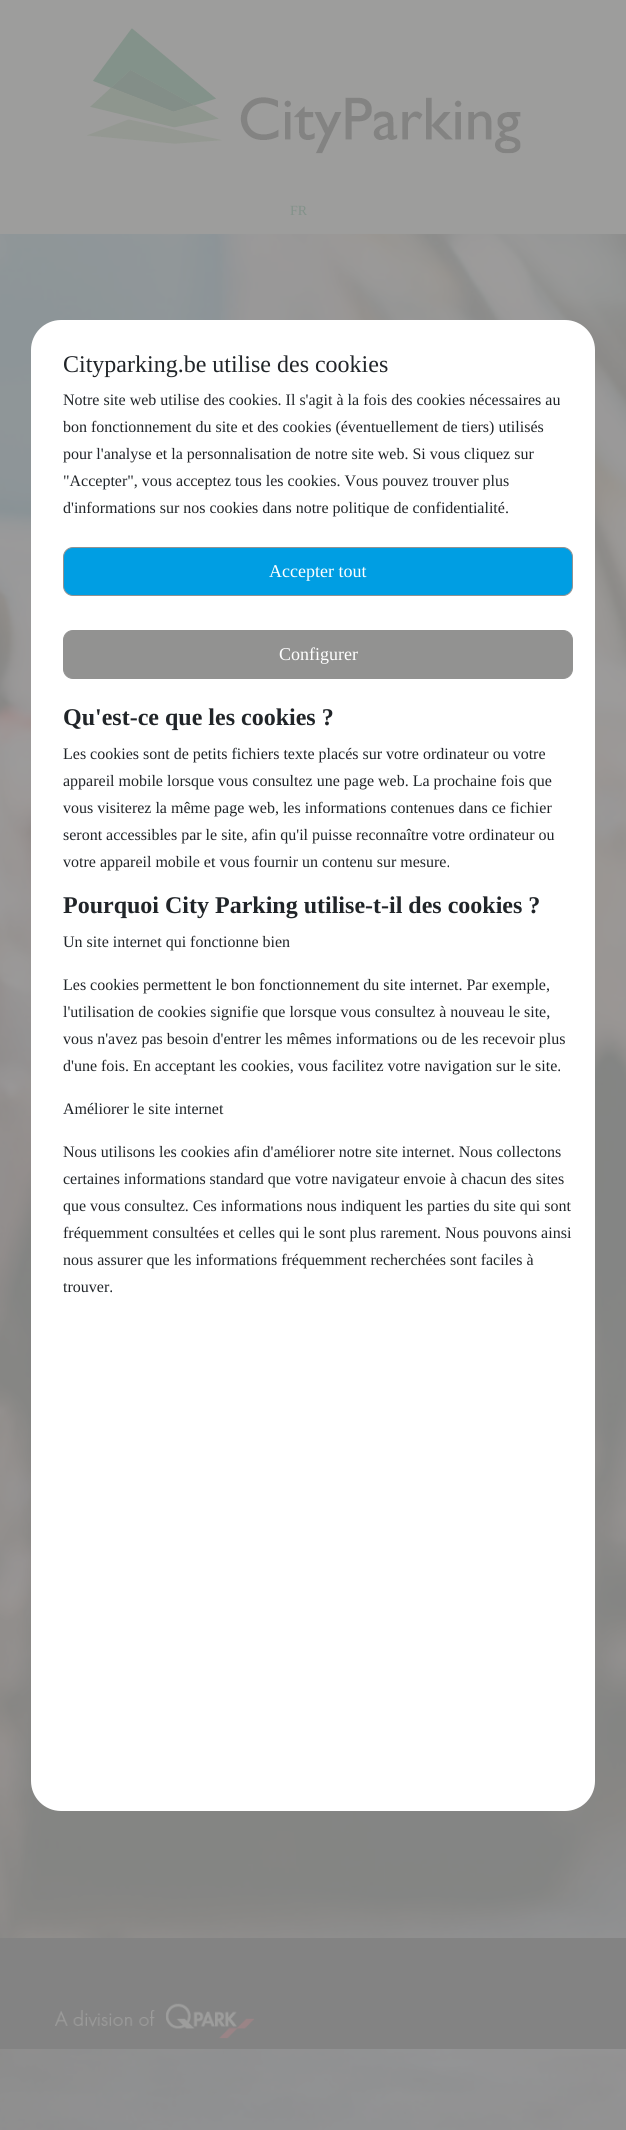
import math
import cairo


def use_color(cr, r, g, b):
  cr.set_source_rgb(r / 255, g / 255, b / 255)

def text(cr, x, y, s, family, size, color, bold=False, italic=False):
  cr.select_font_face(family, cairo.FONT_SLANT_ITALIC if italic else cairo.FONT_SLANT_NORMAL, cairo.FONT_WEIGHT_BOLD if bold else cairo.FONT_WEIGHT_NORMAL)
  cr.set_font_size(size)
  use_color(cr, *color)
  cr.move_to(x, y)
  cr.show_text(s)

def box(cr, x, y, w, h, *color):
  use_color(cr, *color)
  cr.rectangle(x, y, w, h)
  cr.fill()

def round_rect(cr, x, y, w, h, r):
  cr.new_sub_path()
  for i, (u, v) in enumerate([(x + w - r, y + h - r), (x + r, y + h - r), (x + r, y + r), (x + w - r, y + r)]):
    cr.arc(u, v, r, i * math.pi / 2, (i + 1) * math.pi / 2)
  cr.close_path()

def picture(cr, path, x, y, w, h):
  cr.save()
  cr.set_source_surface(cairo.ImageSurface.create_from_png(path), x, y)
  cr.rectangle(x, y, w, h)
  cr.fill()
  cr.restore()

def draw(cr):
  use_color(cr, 255, 255, 255)
  cr.paint()
  picture(cr, "img_01.png", 0, 234, 626, 1896)
  box(cr, 0, 0, 626, 234, 157, 157, 156)
  picture(cr, "img_02.png", 87, 28, 434, 126)
  box(cr, 0, 1938, 626, 111, 131, 131, 131)
  picture(cr, "img_03.png", 55, 2003, 200, 36)
  use_color(cr, 255, 255, 255)
  round_rect(cr, 31, 320, 564, 1491, 30)
  cr.fill()
  use_color(cr, 0, 158, 227)
  round_rect(cr, 63.5, 547.5, 509, 48, 9.5)
  cr.fill_preserve()
  use_color(cr, 146, 146, 145)
  cr.set_line_width(1)
  cr.stroke()
  round_rect(cr, 63.5, 630.5, 509, 48, 9.5)
  cr.fill_preserve()
  cr.stroke()
  text(cr, 290, 215, "FR", "Liberation Serif", 14, (131, 146, 138))
  text(cr, 63, 372, "Cityparking.be utilise des cookies", "Liberation Serif", 24, (33, 37, 41))
  text(cr, 63, 405, "Notre site web utilise des cookies. Il s'agit à la fois des cookies nécessaires au", "Liberation Serif", 16, (33, 37, 41))
  text(cr, 63, 432, "bon fonctionnement du site et des cookies (éventuellement de tiers) utilisés", "Liberation Serif", 16, (33, 37, 41))
  text(cr, 63, 459, "pour l'analyse et la personnalisation de notre site web. Si vous cliquez sur", "Liberation Serif", 16, (33, 37, 41))
  text(cr, 63, 486, "\"Accepter\", vous acceptez tous les cookies. Vous pouvez trouver plus", "Liberation Serif", 16, (33, 37, 41))
  text(cr, 63, 513, "d'informations sur nos cookies dans notre politique de confidentialité.", "Liberation Serif", 16, (33, 37, 41))
  text(cr, 269, 577, "Accepter tout", "Liberation Serif", 18, (255, 255, 255))
  text(cr, 279, 660, "Configurer", "Liberation Serif", 18, (255, 255, 255))
  text(cr, 63, 725, "Qu'est-ce que les cookies ?", "Liberation Serif", 24, (33, 37, 41), bold=True)
  text(cr, 63, 759, "Les cookies sont de petits fichiers texte placés sur votre ordinateur ou votre", "Liberation Serif", 16, (33, 37, 41))
  text(cr, 63, 786, "appareil mobile lorsque vous consultez une page web. La prochaine fois que", "Liberation Serif", 16, (33, 37, 41))
  text(cr, 63, 813, "vous visiterez la même page web, les informations contenues dans ce fichier", "Liberation Serif", 16, (33, 37, 41))
  text(cr, 63, 840, "seront accessibles par le site, afin qu'il puisse reconnaître votre ordinateur ou", "Liberation Serif", 16, (33, 37, 41))
  text(cr, 63, 867, "votre appareil mobile et vous fournir un contenu sur mesure.", "Liberation Serif", 16, (33, 37, 41))
  text(cr, 63, 913, "Pourquoi City Parking utilise-t-il des cookies ?", "Liberation Serif", 24, (33, 37, 41), bold=True)
  text(cr, 63, 947, "Un site internet qui fonctionne bien", "Liberation Serif", 16, (33, 37, 41))
  text(cr, 63, 990, "Les cookies permettent le bon fonctionnement du site internet. Par exemple,", "Liberation Serif", 16, (33, 37, 41))
  text(cr, 63, 1017, "l'utilisation de cookies signifie que lorsque vous consultez à nouveau le site,", "Liberation Serif", 16, (33, 37, 41))
  text(cr, 63, 1044, "vous n'avez pas besoin d'entrer les mêmes informations ou de les recevoir plus", "Liberation Serif", 16, (33, 37, 41))
  text(cr, 63, 1071, "d'une fois. En acceptant les cookies, vous facilitez votre navigation sur le site.", "Liberation Serif", 16, (33, 37, 41))
  text(cr, 63, 1114, "Améliorer le site internet", "Liberation Serif", 16, (33, 37, 41))
  text(cr, 63, 1157, "Nous utilisons les cookies afin d'améliorer notre site internet. Nous collectons", "Liberation Serif", 16, (33, 37, 41))
  text(cr, 63, 1184, "certaines informations standard que votre navigateur envoie à chacun des sites", "Liberation Serif", 16, (33, 37, 41))
  text(cr, 63, 1211, "que vous consultez. Ces informations nous indiquent les parties du site qui sont", "Liberation Serif", 16, (33, 37, 41))
  text(cr, 63, 1238, "fréquemment consultées et celles qui le sont plus rarement. Nous pouvons ainsi", "Liberation Serif", 16, (33, 37, 41))
  text(cr, 63, 1265, "nous assurer que les informations fréquemment recherchées sont faciles à", "Liberation Serif", 16, (33, 37, 41))
  text(cr, 63, 1292, "trouver.", "Liberation Serif", 16, (33, 37, 41))


surface = cairo.ImageSurface(cairo.FORMAT_RGB24, 626, 2130)
cr = cairo.Context(surface)
options = cairo.FontOptions()
options.set_hint_metrics(cairo.HINT_METRICS_OFF)
options.set_hint_style(cairo.HINT_STYLE_NONE)
cr.set_font_options(options)
cr.set_miter_limit(4)
draw(cr)
surface.write_to_png("out.png")
